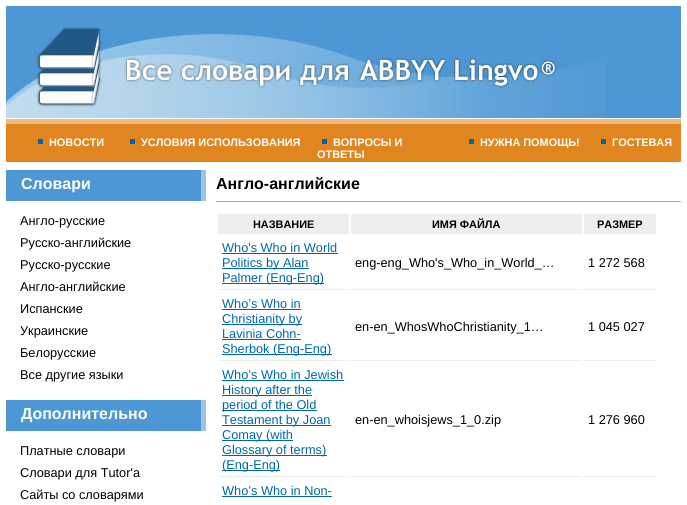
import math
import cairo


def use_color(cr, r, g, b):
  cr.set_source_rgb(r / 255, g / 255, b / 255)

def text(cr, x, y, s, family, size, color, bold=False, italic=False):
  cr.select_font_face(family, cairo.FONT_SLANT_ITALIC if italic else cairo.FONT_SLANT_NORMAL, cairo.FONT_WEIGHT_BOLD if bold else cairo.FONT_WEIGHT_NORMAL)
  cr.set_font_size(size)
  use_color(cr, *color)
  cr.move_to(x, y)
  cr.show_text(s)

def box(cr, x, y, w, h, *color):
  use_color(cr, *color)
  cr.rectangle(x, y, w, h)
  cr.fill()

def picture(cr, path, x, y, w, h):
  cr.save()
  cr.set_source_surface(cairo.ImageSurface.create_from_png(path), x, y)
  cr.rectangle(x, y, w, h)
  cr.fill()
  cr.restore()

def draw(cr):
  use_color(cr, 255, 255, 255)
  cr.paint()
  box(cr, 6, 6, 675, 112, 77, 151, 213)
  picture(cr, "img_01.png", 6, 22, 600, 96)
  box(cr, 6, 124, 675, 38, 224, 133, 31)
  box(cr, 6, 119, 675, 5, 238, 186, 131)
  box(cr, 38, 139, 5, 5, 0, 101, 174)
  box(cr, 130, 139, 5, 5, 0, 101, 174)
  box(cr, 322, 139, 5, 5, 0, 101, 174)
  box(cr, 469, 139, 5, 5, 0, 101, 174)
  box(cr, 601, 139, 5, 5, 0, 101, 174)
  box(cr, 6, 170, 195, 31, 77, 151, 213)
  box(cr, 201, 170, 5, 31, 152, 197, 231)
  box(cr, 6, 400, 195, 31, 77, 151, 213)
  box(cr, 201, 400, 5, 31, 152, 197, 231)
  box(cr, 216, 201, 465, 1, 128, 179, 214)
  box(cr, 218, 214, 131, 20, 238, 238, 238)
  box(cr, 351, 214, 231, 20, 238, 238, 238)
  box(cr, 584, 214, 72, 20, 238, 238, 238)
  box(cr, 218, 289, 131, 1, 238, 238, 238)
  box(cr, 222, 253, 116, 1, 0, 101, 174)
  box(cr, 222, 268, 87, 1, 0, 101, 174)
  box(cr, 222, 283, 102, 1, 0, 101, 174)
  box(cr, 351, 289, 231, 1, 238, 238, 238)
  box(cr, 584, 289, 72, 1, 238, 238, 238)
  box(cr, 218, 360, 131, 1, 238, 238, 238)
  box(cr, 222, 309, 79, 1, 0, 101, 174)
  box(cr, 222, 324, 80, 1, 0, 101, 174)
  box(cr, 222, 339, 79, 1, 0, 101, 174)
  box(cr, 222, 354, 110, 1, 0, 101, 174)
  box(cr, 351, 360, 231, 1, 238, 238, 238)
  box(cr, 584, 360, 72, 1, 238, 238, 238)
  box(cr, 218, 476, 131, 1, 238, 238, 238)
  box(cr, 222, 380, 122, 1, 0, 101, 174)
  box(cr, 222, 395, 90, 1, 0, 101, 174)
  box(cr, 222, 410, 95, 1, 0, 101, 174)
  box(cr, 222, 425, 109, 1, 0, 101, 174)
  box(cr, 222, 440, 71, 1, 0, 101, 174)
  box(cr, 222, 455, 105, 1, 0, 101, 174)
  box(cr, 222, 470, 58, 1, 0, 101, 174)
  box(cr, 351, 476, 231, 1, 238, 238, 238)
  box(cr, 584, 476, 72, 1, 238, 238, 238)
  box(cr, 222, 496, 110, 1, 0, 101, 174)
  text(cr, 49, 146, "НОВОСТИ", "Liberation Sans", 10.9, (255, 255, 255), bold=True)
  text(cr, 141, 146, "УСЛОВИЯ ИСПОЛЬЗОВАНИЯ", "Liberation Sans", 10.9, (255, 255, 255), bold=True)
  text(cr, 333, 146, "ВОПРОСЫ И", "Liberation Sans", 10.9, (255, 255, 255), bold=True)
  text(cr, 317, 158, "ОТВЕТЫ", "Liberation Sans", 10.9, (255, 255, 255), bold=True)
  text(cr, 480, 146, "НУЖНА ПОМОЩЬ!", "Liberation Sans", 10.9, (255, 255, 255), bold=True)
  text(cr, 612, 146, "ГОСТЕВАЯ", "Liberation Sans", 10.9, (255, 255, 255), bold=True)
  text(cr, 21, 189, "Словари", "Liberation Sans", 16, (255, 255, 255), bold=True)
  text(cr, 20, 225, "Англо-русские", "Liberation Sans", 12.75, (0, 0, 0))
  text(cr, 20, 247, "Русско-английские", "Liberation Sans", 12.75, (0, 0, 0))
  text(cr, 20, 269, "Русско-русские", "Liberation Sans", 12.75, (0, 0, 0))
  text(cr, 20, 291, "Англо-английские", "Liberation Sans", 12.75, (0, 0, 0))
  text(cr, 20, 313, "Испанские", "Liberation Sans", 12.75, (0, 0, 0))
  text(cr, 20, 335, "Украинские", "Liberation Sans", 12.75, (0, 0, 0))
  text(cr, 20, 357, "Белорусские", "Liberation Sans", 12.75, (0, 0, 0))
  text(cr, 20, 379, "Все другие языки", "Liberation Sans", 12.75, (0, 0, 0))
  text(cr, 21, 419, "Дополнительно", "Liberation Sans", 16, (255, 255, 255), bold=True)
  text(cr, 20, 455, "Платные словари", "Liberation Sans", 12.75, (0, 0, 0))
  text(cr, 20, 477, "Словари для Tutor'а", "Liberation Sans", 12.75, (0, 0, 0))
  text(cr, 20, 499, "Сайты со словарями", "Liberation Sans", 12.75, (0, 0, 0))
  text(cr, 216, 189, "Англо-английские", "Liberation Sans", 16, (0, 0, 0), bold=True)
  text(cr, 253, 228, "НАЗВАНИЕ", "Liberation Sans", 10.9, (0, 0, 0), bold=True)
  text(cr, 432, 228, "ИМЯ ФАЙЛА", "Liberation Sans", 10.9, (0, 0, 0), bold=True)
  text(cr, 597, 228, "РАЗМЕР", "Liberation Sans", 10.9, (0, 0, 0), bold=True)
  text(cr, 222, 252, "Who's Who in World", "Liberation Sans", 12.75, (0, 101, 174))
  text(cr, 222, 267, "Politics by Alan", "Liberation Sans", 12.75, (0, 101, 174))
  text(cr, 222, 282, "Palmer (Eng-Eng)", "Liberation Sans", 12.75, (0, 101, 174))
  text(cr, 355, 267, "eng-eng_Who's_Who_in_World_…", "Liberation Sans", 12.75, (0, 0, 0))
  text(cr, 588, 267, "1 272 568", "Liberation Sans", 12.75, (0, 0, 0))
  text(cr, 222, 308, "Who’s Who in", "Liberation Sans", 12.75, (0, 101, 174))
  text(cr, 222, 323, "Christianity by", "Liberation Sans", 12.75, (0, 101, 174))
  text(cr, 222, 338, "Lavinia Cohn-", "Liberation Sans", 12.75, (0, 101, 174))
  text(cr, 222, 353, "Sherbok (Eng-Eng)", "Liberation Sans", 12.75, (0, 101, 174))
  text(cr, 355, 331, "en-en_WhosWhoChristianity_1…", "Liberation Sans", 12.75, (0, 0, 0))
  text(cr, 588, 331, "1 045 027", "Liberation Sans", 12.75, (0, 0, 0))
  text(cr, 222, 379, "Who’s Who in Jewish", "Liberation Sans", 12.75, (0, 101, 174))
  text(cr, 222, 394, "History after the", "Liberation Sans", 12.75, (0, 101, 174))
  text(cr, 222, 409, "period of the Old", "Liberation Sans", 12.75, (0, 101, 174))
  text(cr, 222, 424, "Testament by Joan", "Liberation Sans", 12.75, (0, 101, 174))
  text(cr, 222, 439, "Comay (with", "Liberation Sans", 12.75, (0, 101, 174))
  text(cr, 222, 454, "Glossary of terms)", "Liberation Sans", 12.75, (0, 101, 174))
  text(cr, 222, 469, "(Eng-Eng)", "Liberation Sans", 12.75, (0, 101, 174))
  text(cr, 355, 424, "en-en_whoisjews_1_0.zip", "Liberation Sans", 12.75, (0, 0, 0))
  text(cr, 588, 424, "1 276 960", "Liberation Sans", 12.75, (0, 0, 0))
  text(cr, 222, 495, "Who’s Who in Non-", "Liberation Sans", 12.75, (0, 101, 174))


surface = cairo.ImageSurface(cairo.FORMAT_RGB24, 687, 505)
cr = cairo.Context(surface)
options = cairo.FontOptions()
options.set_hint_metrics(cairo.HINT_METRICS_OFF)
options.set_hint_style(cairo.HINT_STYLE_NONE)
cr.set_font_options(options)
cr.set_miter_limit(4)
draw(cr)
surface.write_to_png("out.png")
